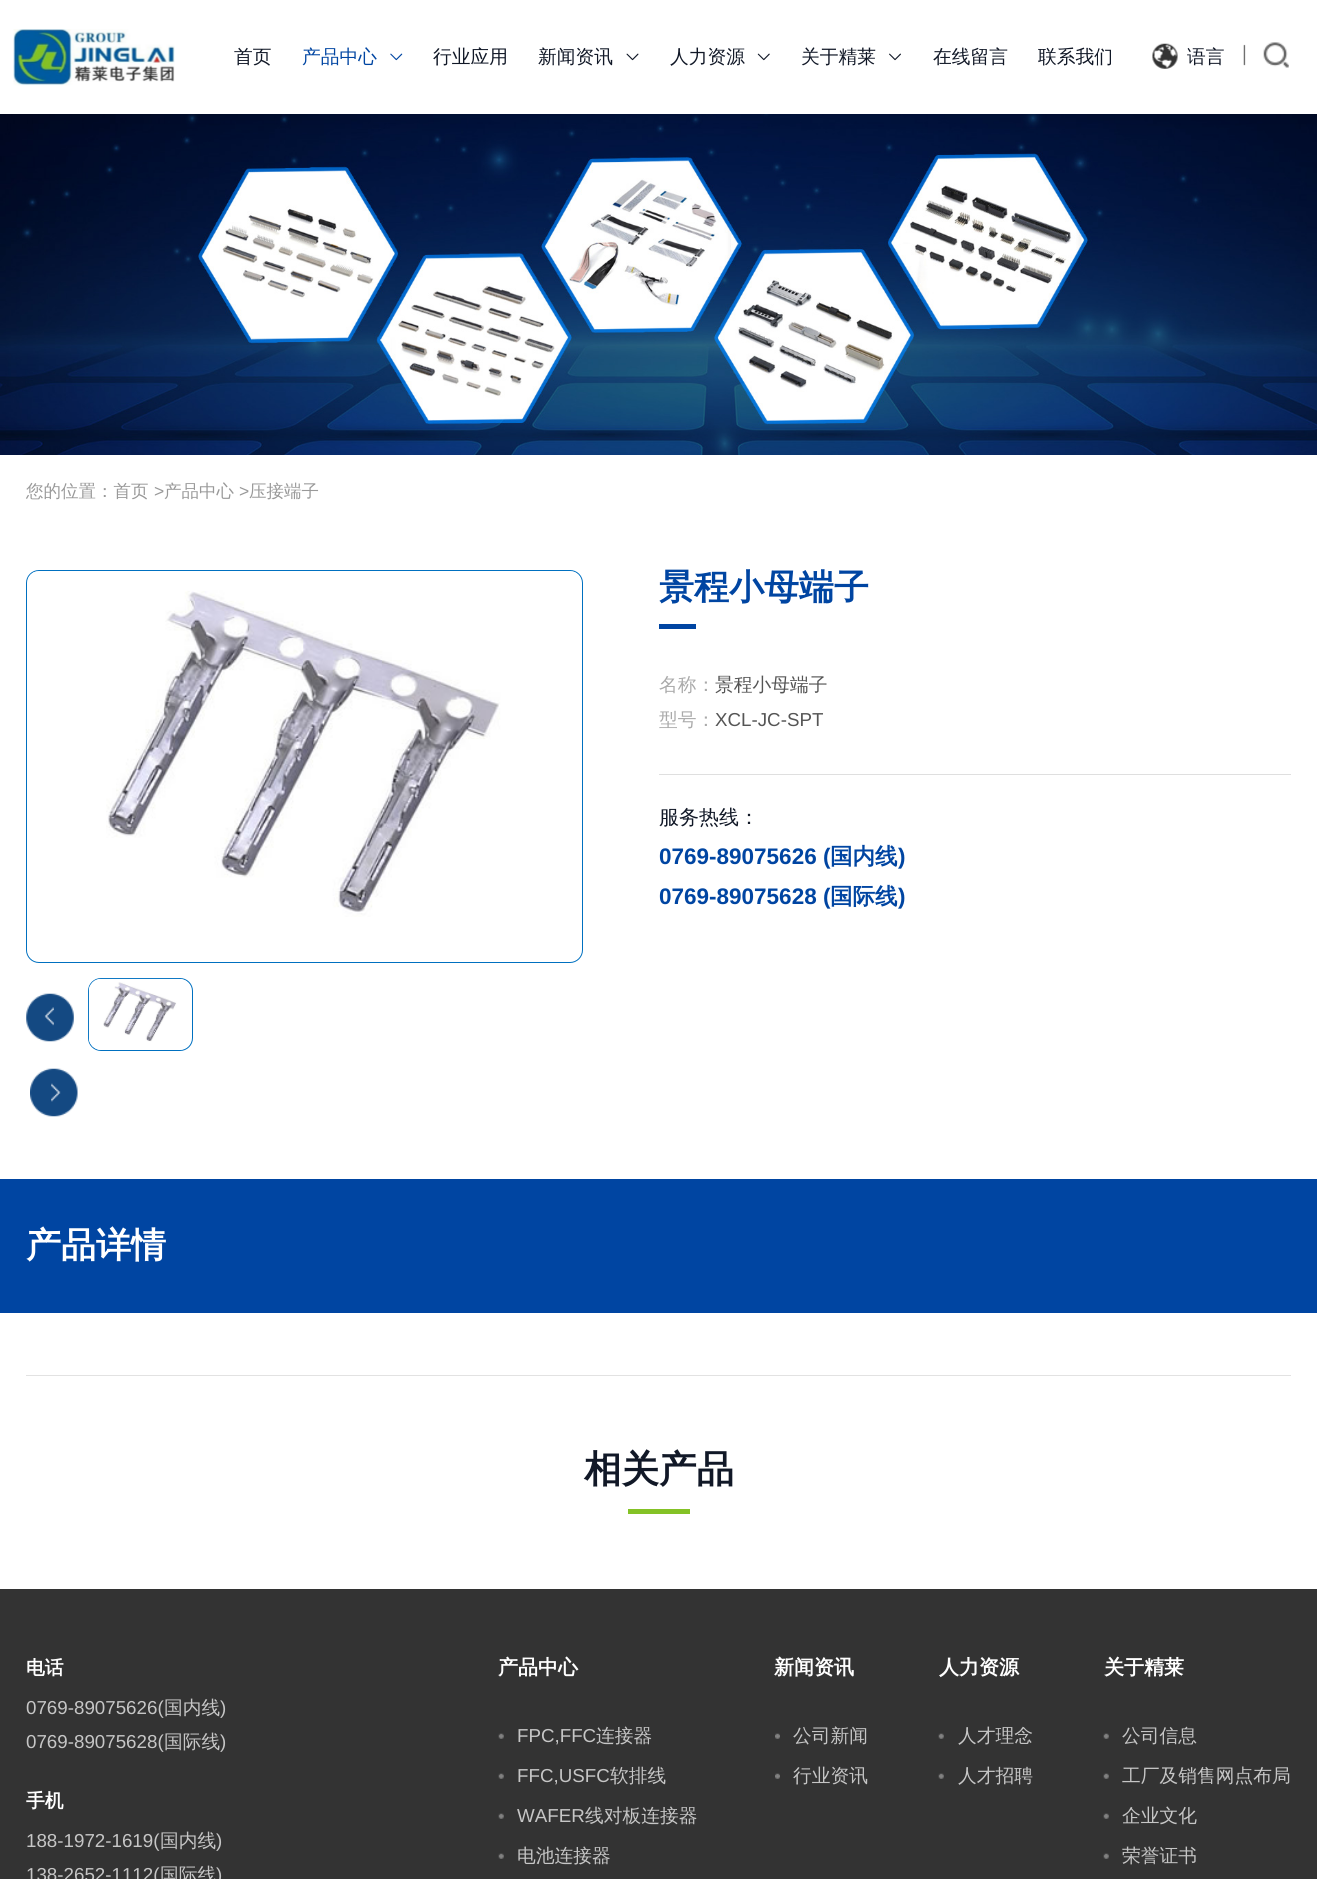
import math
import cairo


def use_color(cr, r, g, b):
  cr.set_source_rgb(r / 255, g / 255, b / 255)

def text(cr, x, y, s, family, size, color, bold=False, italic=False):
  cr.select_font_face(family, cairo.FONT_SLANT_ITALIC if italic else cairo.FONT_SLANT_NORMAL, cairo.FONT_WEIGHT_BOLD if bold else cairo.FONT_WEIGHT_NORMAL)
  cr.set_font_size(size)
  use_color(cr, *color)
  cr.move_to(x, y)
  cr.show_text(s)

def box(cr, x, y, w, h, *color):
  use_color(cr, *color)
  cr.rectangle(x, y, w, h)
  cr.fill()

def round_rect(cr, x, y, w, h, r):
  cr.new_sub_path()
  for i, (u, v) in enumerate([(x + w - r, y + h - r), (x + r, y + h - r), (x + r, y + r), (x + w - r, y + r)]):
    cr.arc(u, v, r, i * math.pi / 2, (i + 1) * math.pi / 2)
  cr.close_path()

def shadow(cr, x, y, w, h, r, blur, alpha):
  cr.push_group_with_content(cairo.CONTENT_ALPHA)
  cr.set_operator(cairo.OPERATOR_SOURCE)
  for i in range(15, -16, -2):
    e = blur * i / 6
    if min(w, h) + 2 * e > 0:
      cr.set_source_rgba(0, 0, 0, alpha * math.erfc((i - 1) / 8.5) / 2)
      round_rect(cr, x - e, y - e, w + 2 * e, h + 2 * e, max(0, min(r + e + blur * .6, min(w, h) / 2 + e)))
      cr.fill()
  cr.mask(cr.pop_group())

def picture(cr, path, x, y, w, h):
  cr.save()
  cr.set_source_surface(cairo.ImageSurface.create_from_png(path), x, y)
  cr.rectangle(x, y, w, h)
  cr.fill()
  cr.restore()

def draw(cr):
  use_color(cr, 255, 255, 255)
  cr.paint()
  picture(cr, "img_08.png", 0, 114, 1317, 341)
  use_color(cr, 4, 0, 0)
  shadow(cr, 0, 0, 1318, 114, 0, 12.5, 0.2)
  box(cr, 0, 0, 1317, 114, 255, 255, 255)
  picture(cr, "img_01.png", 13, 29, 162, 57)
  picture(cr, "img_02.png", 390, 53, 13, 8)
  picture(cr, "img_03.png", 626, 53, 13, 8)
  picture(cr, "img_04.png", 757, 53, 13, 8)
  picture(cr, "img_05.png", 889, 53, 12, 8)
  picture(cr, "img_06.png", 1152, 43, 26, 26)
  picture(cr, "img_07.png", 1243, 42, 46, 26)
  round_rect(cr, 26.5, 570.5, 556, 392, 12.5)
  use_color(cr, 0, 112, 192)
  cr.set_line_width(1)
  cr.stroke()
  picture(cr, "img_09.png", 27, 571, 554, 390)
  picture(cr, "img_10.png", 26, 993, 48, 49)
  round_rect(cr, 88.5, 978.5, 104, 72, 12.5)
  cr.stroke()
  picture(cr, "img_11.png", 88, 978, 99, 72)
  picture(cr, "img_12.png", 30, 1068, 48, 49)
  box(cr, 659, 624, 37, 5, 0, 69, 162)
  box(cr, 659, 774, 632, 1, 223, 223, 223)
  box(cr, 0, 1179, 1317, 134, 0, 69, 162)
  box(cr, 26, 1375, 1265, 1, 226, 226, 226)
  box(cr, 628, 1509, 62, 5, 132, 194, 38)
  box(cr, 0, 1589, 1317, 290, 51, 51, 51)
  picture(cr, "img_13.png", 498, 1733, 6, 6)
  picture(cr, "img_13.png", 498, 1773, 6, 6)
  picture(cr, "img_13.png", 498, 1813, 6, 6)
  picture(cr, "img_13.png", 498, 1853, 6, 6)
  picture(cr, "img_14.png", 775, 1733, 5, 6)
  picture(cr, "img_14.png", 775, 1773, 5, 6)
  picture(cr, "img_15.png", 938, 1733, 6, 6)
  picture(cr, "img_15.png", 938, 1773, 6, 6)
  picture(cr, "img_15.png", 1103, 1733, 6, 6)
  picture(cr, "img_15.png", 1103, 1773, 6, 6)
  picture(cr, "img_15.png", 1103, 1813, 6, 6)
  picture(cr, "img_15.png", 1103, 1853, 6, 6)
  text(cr, 234, 63, "首页", "WenQuanYi Zen Hei Medium", 18.75, (17, 24, 39))
  text(cr, 302, 63, "产品中心", "WenQuanYi Zen Hei Medium", 18.75, (0, 69, 162))
  text(cr, 433, 63, "行业应用", "WenQuanYi Zen Hei Medium", 18.75, (17, 24, 39))
  text(cr, 538, 63, "新闻资讯", "WenQuanYi Zen Hei Medium", 18.75, (17, 24, 39))
  text(cr, 670, 63, "人力资源", "WenQuanYi Zen Hei Medium", 18.75, (17, 24, 39))
  text(cr, 801, 63, "关于精莱", "WenQuanYi Zen Hei Medium", 18.75, (17, 24, 39))
  text(cr, 933, 63, "在线留言", "WenQuanYi Zen Hei Medium", 18.75, (17, 24, 39))
  text(cr, 1038, 63, "联系我们", "WenQuanYi Zen Hei Medium", 18.75, (17, 24, 39))
  text(cr, 1187, 63, "语言", "WenQuanYi Zen Hei Medium", 18.75, (17, 24, 39))
  text(cr, 26, 497, "您的位置：首页", "WenQuanYi Zen Hei Medium", 17.5, (153, 153, 153))
  text(cr, 154, 497, ">", "Liberation Sans", 17.5, (153, 153, 153))
  text(cr, 164, 497, "产品中心", "WenQuanYi Zen Hei Medium", 17.5, (153, 153, 153))
  text(cr, 239, 497, ">", "Liberation Sans", 17.5, (153, 153, 153))
  text(cr, 249, 497, "压接端子", "WenQuanYi Zen Hei Medium", 17.5, (153, 153, 153))
  text(cr, 659, 599, "景程小母端子", "WenQuanYi Zen Hei", 35, (0, 69, 162), bold=True)
  text(cr, 659, 691, "名称：", "WenQuanYi Zen Hei Medium", 18.75, (170, 170, 170))
  text(cr, 715, 691, "景程小母端子", "WenQuanYi Zen Hei Medium", 18.75, (85, 85, 85))
  text(cr, 659, 726, "型号：", "WenQuanYi Zen Hei Medium", 18.75, (170, 170, 170))
  text(cr, 715, 726, "XCL-JC-SPT", "Liberation Sans", 18.75, (85, 85, 85))
  text(cr, 659, 824, "服务热线：", "WenQuanYi Zen Hei Medium", 20, (17, 24, 39))
  text(cr, 659, 864, "0769-89075626 (", "Liberation Sans", 22.5, (0, 69, 162), bold=True)
  text(cr, 830, 864, "国内线", "WenQuanYi Zen Hei", 22.5, (0, 69, 162), bold=True)
  text(cr, 898, 864, ")", "Liberation Sans", 22.5, (0, 69, 162), bold=True)
  text(cr, 659, 904, "0769-89075628 (", "Liberation Sans", 22.5, (0, 69, 162), bold=True)
  text(cr, 830, 904, "国际线", "WenQuanYi Zen Hei", 22.5, (0, 69, 162), bold=True)
  text(cr, 898, 904, ")", "Liberation Sans", 22.5, (0, 69, 162), bold=True)
  text(cr, 26, 1257, "产品详情", "WenQuanYi Zen Hei", 35, (255, 255, 255), bold=True)
  text(cr, 584, 1482, "相关产品", "WenQuanYi Zen Hei", 37.5, (17, 24, 39), bold=True)
  text(cr, 26, 1674, "电话", "WenQuanYi Zen Hei", 18.75, (255, 255, 255), bold=True)
  text(cr, 26, 1714, "0769-89075626(", "Liberation Sans", 18.75, (198, 198, 198))
  text(cr, 164, 1714, "国内线", "WenQuanYi Zen Hei Medium", 18.75, (198, 198, 198))
  text(cr, 220, 1714, ")", "Liberation Sans", 18.75, (198, 198, 198))
  text(cr, 26, 1748, "0769-89075628(", "Liberation Sans", 18.75, (198, 198, 198))
  text(cr, 164, 1748, "国际线", "WenQuanYi Zen Hei Medium", 18.75, (198, 198, 198))
  text(cr, 220, 1748, ")", "Liberation Sans", 18.75, (198, 198, 198))
  text(cr, 26, 1807, "手机", "WenQuanYi Zen Hei", 18.75, (255, 255, 255), bold=True)
  text(cr, 26, 1847, "188-1972-1619(", "Liberation Sans", 18.75, (198, 198, 198))
  text(cr, 160, 1847, "国内线", "WenQuanYi Zen Hei Medium", 18.75, (198, 198, 198))
  text(cr, 216, 1847, ")", "Liberation Sans", 18.75, (198, 198, 198))
  text(cr, 26, 1881, "138-2652-1112(", "Liberation Sans", 18.75, (198, 198, 198))
  text(cr, 160, 1881, "国际线", "WenQuanYi Zen Hei Medium", 18.75, (198, 198, 198))
  text(cr, 216, 1881, ")", "Liberation Sans", 18.75, (198, 198, 198))
  text(cr, 498, 1674, "产品中心", "WenQuanYi Zen Hei", 20, (255, 255, 255), bold=True)
  text(cr, 517, 1742, "FPC,FFC", "Liberation Sans", 18.75, (198, 198, 198))
  text(cr, 596, 1742, "连接器", "WenQuanYi Zen Hei Medium", 18.75, (198, 198, 198))
  text(cr, 517, 1782, "FFC,USFC", "Liberation Sans", 18.75, (198, 198, 198))
  text(cr, 610, 1782, "软排线", "WenQuanYi Zen Hei Medium", 18.75, (198, 198, 198))
  text(cr, 517, 1822, "WAFER", "Liberation Sans", 18.75, (198, 198, 198))
  text(cr, 585, 1822, "线对板连接器", "WenQuanYi Zen Hei Medium", 18.75, (198, 198, 198))
  text(cr, 517, 1862, "电池连接器", "WenQuanYi Zen Hei Medium", 18.75, (198, 198, 198))
  text(cr, 774, 1674, "新闻资讯", "WenQuanYi Zen Hei", 20, (255, 255, 255), bold=True)
  text(cr, 793, 1742, "公司新闻", "WenQuanYi Zen Hei Medium", 18.75, (198, 198, 198))
  text(cr, 793, 1782, "行业资讯", "WenQuanYi Zen Hei Medium", 18.75, (198, 198, 198))
  text(cr, 939, 1674, "人力资源", "WenQuanYi Zen Hei", 20, (255, 255, 255), bold=True)
  text(cr, 958, 1742, "人才理念", "WenQuanYi Zen Hei Medium", 18.75, (198, 198, 198))
  text(cr, 958, 1782, "人才招聘", "WenQuanYi Zen Hei Medium", 18.75, (198, 198, 198))
  text(cr, 1104, 1674, "关于精莱", "WenQuanYi Zen Hei", 20, (255, 255, 255), bold=True)
  text(cr, 1122, 1742, "公司信息", "WenQuanYi Zen Hei Medium", 18.75, (198, 198, 198))
  text(cr, 1122, 1782, "工厂及销售网点布局", "WenQuanYi Zen Hei Medium", 18.75, (198, 198, 198))
  text(cr, 1122, 1822, "企业文化", "WenQuanYi Zen Hei Medium", 18.75, (198, 198, 198))
  text(cr, 1122, 1862, "荣誉证书", "WenQuanYi Zen Hei Medium", 18.75, (198, 198, 198))


surface = cairo.ImageSurface(cairo.FORMAT_RGB24, 1317, 1879)
cr = cairo.Context(surface)
options = cairo.FontOptions()
options.set_hint_metrics(cairo.HINT_METRICS_OFF)
options.set_hint_style(cairo.HINT_STYLE_NONE)
cr.set_font_options(options)
cr.set_miter_limit(4)
draw(cr)
surface.write_to_png("out.png")
